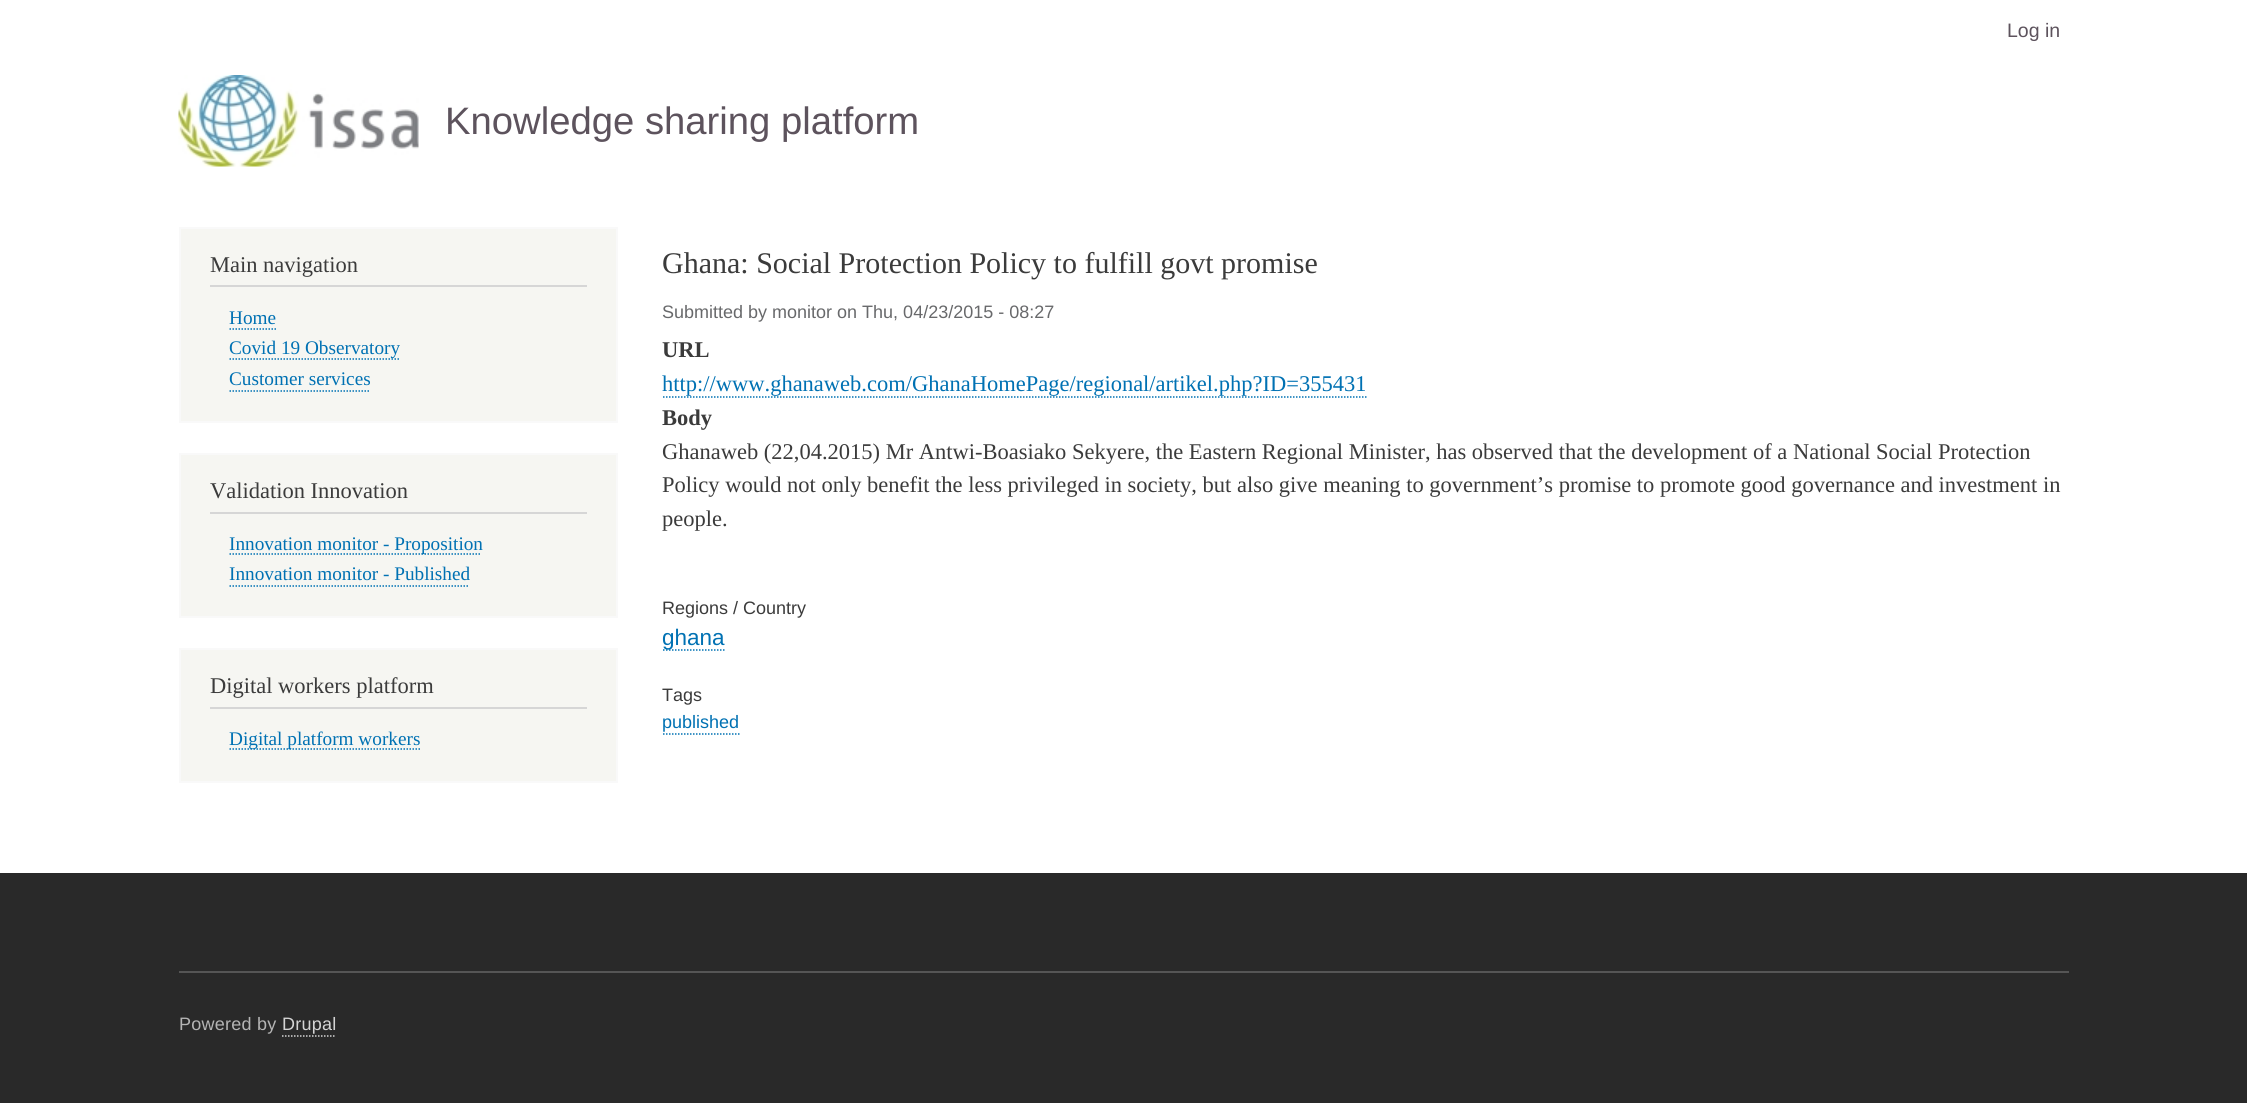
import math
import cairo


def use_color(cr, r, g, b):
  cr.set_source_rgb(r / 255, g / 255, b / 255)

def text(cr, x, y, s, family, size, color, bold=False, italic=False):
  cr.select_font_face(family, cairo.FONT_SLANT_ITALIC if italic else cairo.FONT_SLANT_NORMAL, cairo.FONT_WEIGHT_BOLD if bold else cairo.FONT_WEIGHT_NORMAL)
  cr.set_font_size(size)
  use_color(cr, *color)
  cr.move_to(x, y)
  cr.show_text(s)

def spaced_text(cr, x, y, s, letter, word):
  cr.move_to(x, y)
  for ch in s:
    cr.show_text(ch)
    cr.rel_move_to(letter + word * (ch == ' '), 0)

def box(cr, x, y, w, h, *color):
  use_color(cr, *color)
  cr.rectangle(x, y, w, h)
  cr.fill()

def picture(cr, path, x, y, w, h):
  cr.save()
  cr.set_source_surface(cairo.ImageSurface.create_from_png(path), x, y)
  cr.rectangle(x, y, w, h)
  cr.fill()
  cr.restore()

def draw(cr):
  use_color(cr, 255, 255, 255)
  cr.paint()
  picture(cr, "img_01.png", 178, 75, 241, 92)
  use_color(cr, 246, 246, 242)
  cr.rectangle(180, 228, 437, 194)
  cr.fill_preserve()
  use_color(cr, 249, 249, 249)
  cr.stroke()
  box(cr, 210, 285, 377, 2, 214, 214, 214)
  cr.new_path()
  cr.move_to(229.5, 329)
  cr.line_to(276, 329)
  use_color(cr, 0, 113, 179)
  cr.set_line_width(1.5)
  cr.set_dash([1.5, 1.5])
  cr.stroke()
  cr.new_path()
  cr.move_to(229.5, 359)
  cr.line_to(399, 359)
  cr.stroke()
  cr.new_path()
  cr.move_to(229.5, 391)
  cr.line_to(370.5, 391)
  cr.stroke()
  use_color(cr, 246, 246, 242)
  cr.rectangle(180, 454, 437, 163)
  cr.fill_preserve()
  use_color(cr, 249, 249, 249)
  cr.set_line_width(2)
  cr.set_dash([])
  cr.stroke()
  box(cr, 210, 512, 377, 2, 214, 214, 214)
  cr.new_path()
  cr.move_to(229.5, 554)
  cr.line_to(481.5, 554)
  use_color(cr, 0, 113, 179)
  cr.set_line_width(1.5)
  cr.set_dash([1.5, 1.5])
  cr.stroke()
  cr.new_path()
  cr.move_to(229.5, 586)
  cr.line_to(469.5, 586)
  cr.stroke()
  use_color(cr, 246, 246, 242)
  cr.rectangle(180, 649, 437, 133)
  cr.fill_preserve()
  use_color(cr, 249, 249, 249)
  cr.set_line_width(2)
  cr.set_dash([])
  cr.stroke()
  box(cr, 210, 707, 377, 2, 214, 214, 214)
  cr.new_path()
  cr.move_to(229.5, 749)
  cr.line_to(420, 749)
  use_color(cr, 0, 113, 179)
  cr.set_line_width(1.5)
  cr.set_dash([1.5, 1.5])
  cr.stroke()
  cr.new_path()
  cr.move_to(663, 397)
  cr.line_to(1366.5, 397)
  cr.stroke()
  cr.new_path()
  cr.move_to(663, 650)
  cr.line_to(724.5, 650)
  cr.stroke()
  cr.new_path()
  cr.move_to(663, 734)
  cr.line_to(739.5, 734)
  cr.stroke()
  box(cr, 0, 873, 2247, 230, 41, 41, 41)
  box(cr, 179, 971, 1890, 2, 85, 85, 85)
  cr.new_path()
  cr.move_to(282, 1036)
  cr.line_to(336, 1036)
  use_color(cr, 212, 212, 212)
  cr.stroke()
  text(cr, 2007, 37, "Log in", "Liberation Sans", 19.5, (93, 83, 93))
  text(cr, 445, 134, "Knowledge sharing platform", "Liberation Sans", 38.25, (93, 83, 93))
  text(cr, 210, 272, "Main navigation", "Liberation Serif", 22.5, (59, 59, 59))
  text(cr, 229, 324, "Home", "Liberation Serif", 19.25, (0, 113, 179))
  text(cr, 229, 354, "Covid 19 Observatory", "Liberation Serif", 19.25, (0, 113, 179))
  text(cr, 229, 385, "Customer services", "Liberation Serif", 19.25, (0, 113, 179))
  text(cr, 210, 498, "Validation Innovation", "Liberation Serif", 22.5, (59, 59, 59))
  text(cr, 229, 550, "Innovation monitor - Proposition", "Liberation Serif", 19.25, (0, 113, 179))
  text(cr, 229, 580, "Innovation monitor - Published", "Liberation Serif", 19.25, (0, 113, 179))
  text(cr, 210, 693, "Digital workers platform", "Liberation Serif", 22.5, (59, 59, 59))
  text(cr, 229, 745, "Digital platform workers", "Liberation Serif", 19.25, (0, 113, 179))
  text(cr, 662, 273, "Ghana: Social Protection Policy to fulfill govt promise", "Liberation Serif", 30, (59, 59, 59))
  text(cr, 662, 318, "Submitted by monitor on Thu, 04/23/2015 - 08:27", "Liberation Sans", 18, (104, 105, 107))
  text(cr, 662, 357, "URL", "Liberation Serif", 22.5, (59, 59, 59), bold=True)
  text(cr, 662, 391, "http://www.ghanaweb.com/GhanaHomePage/regional/artikel.php?ID=355431", "Liberation Serif", 22.5, (0, 113, 179))
  text(cr, 662, 425, "Body", "Liberation Serif", 22.5, (59, 59, 59), bold=True)
  text(cr, 662, 459, "Ghanaweb (22,04.2015) Mr Antwi-Boasiako Sekyere, the Eastern Regional Minister, has observed that the development of a National Social Protection", "Liberation Serif", 22.5, (59, 59, 59))
  text(cr, 662, 492, "Policy would not only benefit the less privileged in society, but also give meaning to government’s promise to promote good governance and investment in", "Liberation Serif", 22.5, (59, 59, 59))
  text(cr, 662, 526, "people.", "Liberation Serif", 22.5, (59, 59, 59))
  text(cr, 662, 614, "Regions / Country", "Liberation Sans", 18, (59, 59, 59))
  text(cr, 662, 645, "ghana", "Liberation Sans", 22.5, (0, 113, 179))
  text(cr, 662, 701, "Tags", "Liberation Sans", 18, (59, 59, 59))
  text(cr, 662, 728, "published", "Liberation Sans", 18, (0, 113, 179))
  use_color(cr, 180, 180, 180)
  spaced_text(cr, 179, 1030, "Powered by", 0.25, 0)
  use_color(cr, 212, 212, 212)
  spaced_text(cr, 282, 1030, "Drupal", 0.25, 0)


surface = cairo.ImageSurface(cairo.FORMAT_RGB24, 2247, 1103)
cr = cairo.Context(surface)
options = cairo.FontOptions()
options.set_hint_metrics(cairo.HINT_METRICS_OFF)
options.set_hint_style(cairo.HINT_STYLE_NONE)
cr.set_font_options(options)
cr.set_miter_limit(4)
draw(cr)
surface.write_to_png("out.png")
